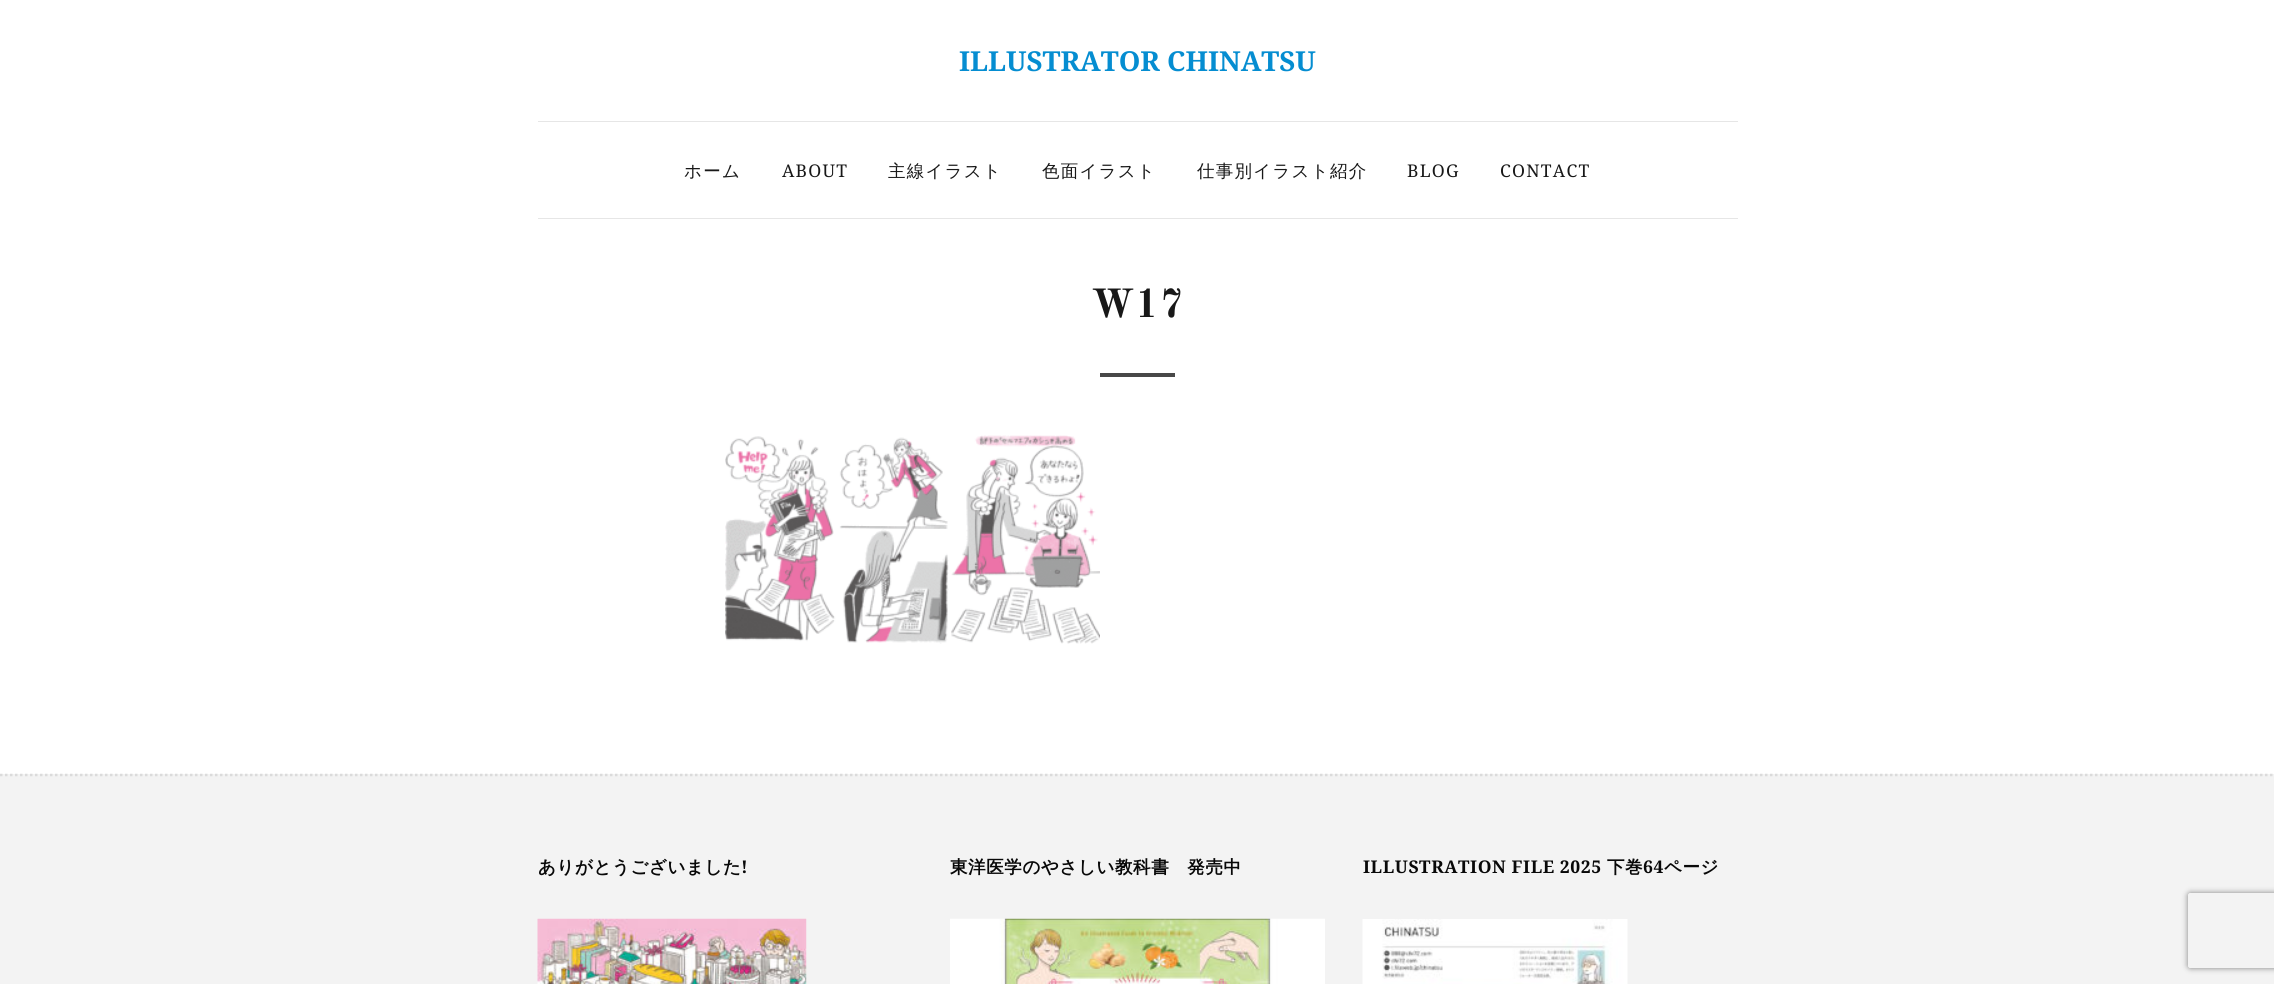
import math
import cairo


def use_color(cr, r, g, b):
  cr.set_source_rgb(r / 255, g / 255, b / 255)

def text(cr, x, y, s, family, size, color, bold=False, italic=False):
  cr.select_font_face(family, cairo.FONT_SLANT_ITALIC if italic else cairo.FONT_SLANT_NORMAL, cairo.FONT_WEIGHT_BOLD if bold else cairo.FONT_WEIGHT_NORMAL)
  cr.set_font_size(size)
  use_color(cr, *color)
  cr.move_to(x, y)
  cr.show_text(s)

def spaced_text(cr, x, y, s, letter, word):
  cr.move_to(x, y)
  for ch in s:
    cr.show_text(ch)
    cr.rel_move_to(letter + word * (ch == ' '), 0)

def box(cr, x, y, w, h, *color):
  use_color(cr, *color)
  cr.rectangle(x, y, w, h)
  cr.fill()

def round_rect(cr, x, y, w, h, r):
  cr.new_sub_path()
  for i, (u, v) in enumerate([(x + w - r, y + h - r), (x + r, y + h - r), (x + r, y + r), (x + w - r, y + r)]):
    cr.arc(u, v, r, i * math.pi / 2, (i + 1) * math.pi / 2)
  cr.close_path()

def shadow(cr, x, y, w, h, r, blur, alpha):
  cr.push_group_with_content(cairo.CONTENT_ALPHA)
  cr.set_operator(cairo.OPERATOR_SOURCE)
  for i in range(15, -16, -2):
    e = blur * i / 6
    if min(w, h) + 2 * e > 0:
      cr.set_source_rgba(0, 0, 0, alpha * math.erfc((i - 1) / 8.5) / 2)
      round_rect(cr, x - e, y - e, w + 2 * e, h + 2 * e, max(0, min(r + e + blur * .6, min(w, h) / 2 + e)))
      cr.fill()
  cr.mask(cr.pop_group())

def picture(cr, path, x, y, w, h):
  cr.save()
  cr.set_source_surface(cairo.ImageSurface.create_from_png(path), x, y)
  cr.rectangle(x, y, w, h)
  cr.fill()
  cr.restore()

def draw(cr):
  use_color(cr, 255, 255, 255)
  cr.paint()
  box(cr, 538, 121, 1200, 1, 230, 230, 230)
  box(cr, 538, 218, 1200, 1, 230, 230, 230)
  box(cr, 1100, 373, 75, 4, 72, 72, 72)
  picture(cr, "img_01.png", 725, 435, 375, 209)
  box(cr, 0, 774, 2274, 210, 243, 243, 243)
  cr.new_path()
  cr.move_to(0, 775)
  cr.line_to(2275, 775)
  use_color(cr, 219, 219, 219)
  cr.set_line_width(2.5)
  cr.set_dash([2.5, 2.5])
  cr.stroke()
  picture(cr, "img_02.png", 537, 918, 270, 66)
  picture(cr, "img_03.png", 950, 918, 375, 66)
  picture(cr, "img_04.png", 1362, 919, 266, 65)
  cr.save()
  cr.set_fill_rule(cairo.FILL_RULE_EVEN_ODD)
  cr.new_path()
  cr.move_to(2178, 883)
  cr.line_to(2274, 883)
  cr.line_to(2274, 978)
  cr.line_to(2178, 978)
  cr.close_path()
  cr.move_to(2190.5, 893)
  cr.line_to(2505.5, 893)
  cr.curve_to(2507, 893, 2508, 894, 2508, 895.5)
  cr.line_to(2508, 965.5)
  cr.curve_to(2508, 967, 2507, 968, 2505.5, 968)
  cr.line_to(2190.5, 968)
  cr.curve_to(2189, 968, 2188, 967, 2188, 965.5)
  cr.line_to(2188, 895.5)
  cr.curve_to(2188, 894, 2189, 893, 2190.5, 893)
  cr.close_path()
  cr.clip()
  use_color(cr, 128, 128, 128)
  shadow(cr, 2188, 893, 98, 75, 2.5, 3, 1)
  cr.restore()
  text(cr, 959, 71, "ILLUSTRATOR CHINATSU", "Noto Serif", 27.5, (5, 141, 209), bold=True)
  cr.select_font_face("WenQuanYi Zen Hei Medium")
  cr.set_font_size(17.5)
  use_color(cr, 24, 24, 24)
  spaced_text(cr, 684, 177, "ホーム", 1.25, 0)
  cr.select_font_face("Noto Serif")
  spaced_text(cr, 782, 177, "ABOUT", 1.25, 0)
  cr.select_font_face("WenQuanYi Zen Hei Medium")
  spaced_text(cr, 888, 177, "主線イラスト", 1.25, 0)
  spaced_text(cr, 1042, 177, "色面イラスト", 1.25, 0)
  spaced_text(cr, 1197, 177, "仕事別イラスト紹介", 1.25, 0)
  cr.select_font_face("Noto Serif")
  spaced_text(cr, 1407, 177, "BLOG", 1.25, 0)
  spaced_text(cr, 1500, 177, "CONTACT", 1.25, 0)
  cr.select_font_face("Old Standard TT", cairo.FONT_SLANT_NORMAL, cairo.FONT_WEIGHT_BOLD)
  cr.set_font_size(40)
  spaced_text(cr, 1091, 317, "W17", 1.25, 0)
  cr.select_font_face("WenQuanYi Zen Hei", cairo.FONT_SLANT_NORMAL, cairo.FONT_WEIGHT_BOLD)
  cr.set_font_size(17.5)
  use_color(cr, 8, 8, 8)
  spaced_text(cr, 538, 873, "ありがとうございました", 0.6, 0)
  cr.select_font_face("Noto Serif", cairo.FONT_SLANT_NORMAL, cairo.FONT_WEIGHT_BOLD)
  spaced_text(cr, 741, 873, "!", 0.6, 0)
  cr.select_font_face("WenQuanYi Zen Hei", cairo.FONT_SLANT_NORMAL, cairo.FONT_WEIGHT_BOLD)
  spaced_text(cr, 950, 873, "東洋医学のやさしい教科書　発売中", 0.6, 0)
  cr.select_font_face("Noto Serif", cairo.FONT_SLANT_NORMAL, cairo.FONT_WEIGHT_BOLD)
  spaced_text(cr, 1363, 873, "ILLUSTRATION FILE 2025", 0.6, 0)
  cr.select_font_face("WenQuanYi Zen Hei", cairo.FONT_SLANT_NORMAL, cairo.FONT_WEIGHT_BOLD)
  spaced_text(cr, 1607, 873, "下巻", 0.6, 0)
  cr.select_font_face("Noto Serif", cairo.FONT_SLANT_NORMAL, cairo.FONT_WEIGHT_BOLD)
  spaced_text(cr, 1643, 873, "64", 0.6, 0)
  cr.select_font_face("WenQuanYi Zen Hei", cairo.FONT_SLANT_NORMAL, cairo.FONT_WEIGHT_BOLD)
  spaced_text(cr, 1664, 873, "ページ", 0.6, 0)


surface = cairo.ImageSurface(cairo.FORMAT_RGB24, 2274, 984)
cr = cairo.Context(surface)
options = cairo.FontOptions()
options.set_hint_metrics(cairo.HINT_METRICS_OFF)
options.set_hint_style(cairo.HINT_STYLE_NONE)
cr.set_font_options(options)
cr.set_miter_limit(4)
draw(cr)
surface.write_to_png("out.png")
